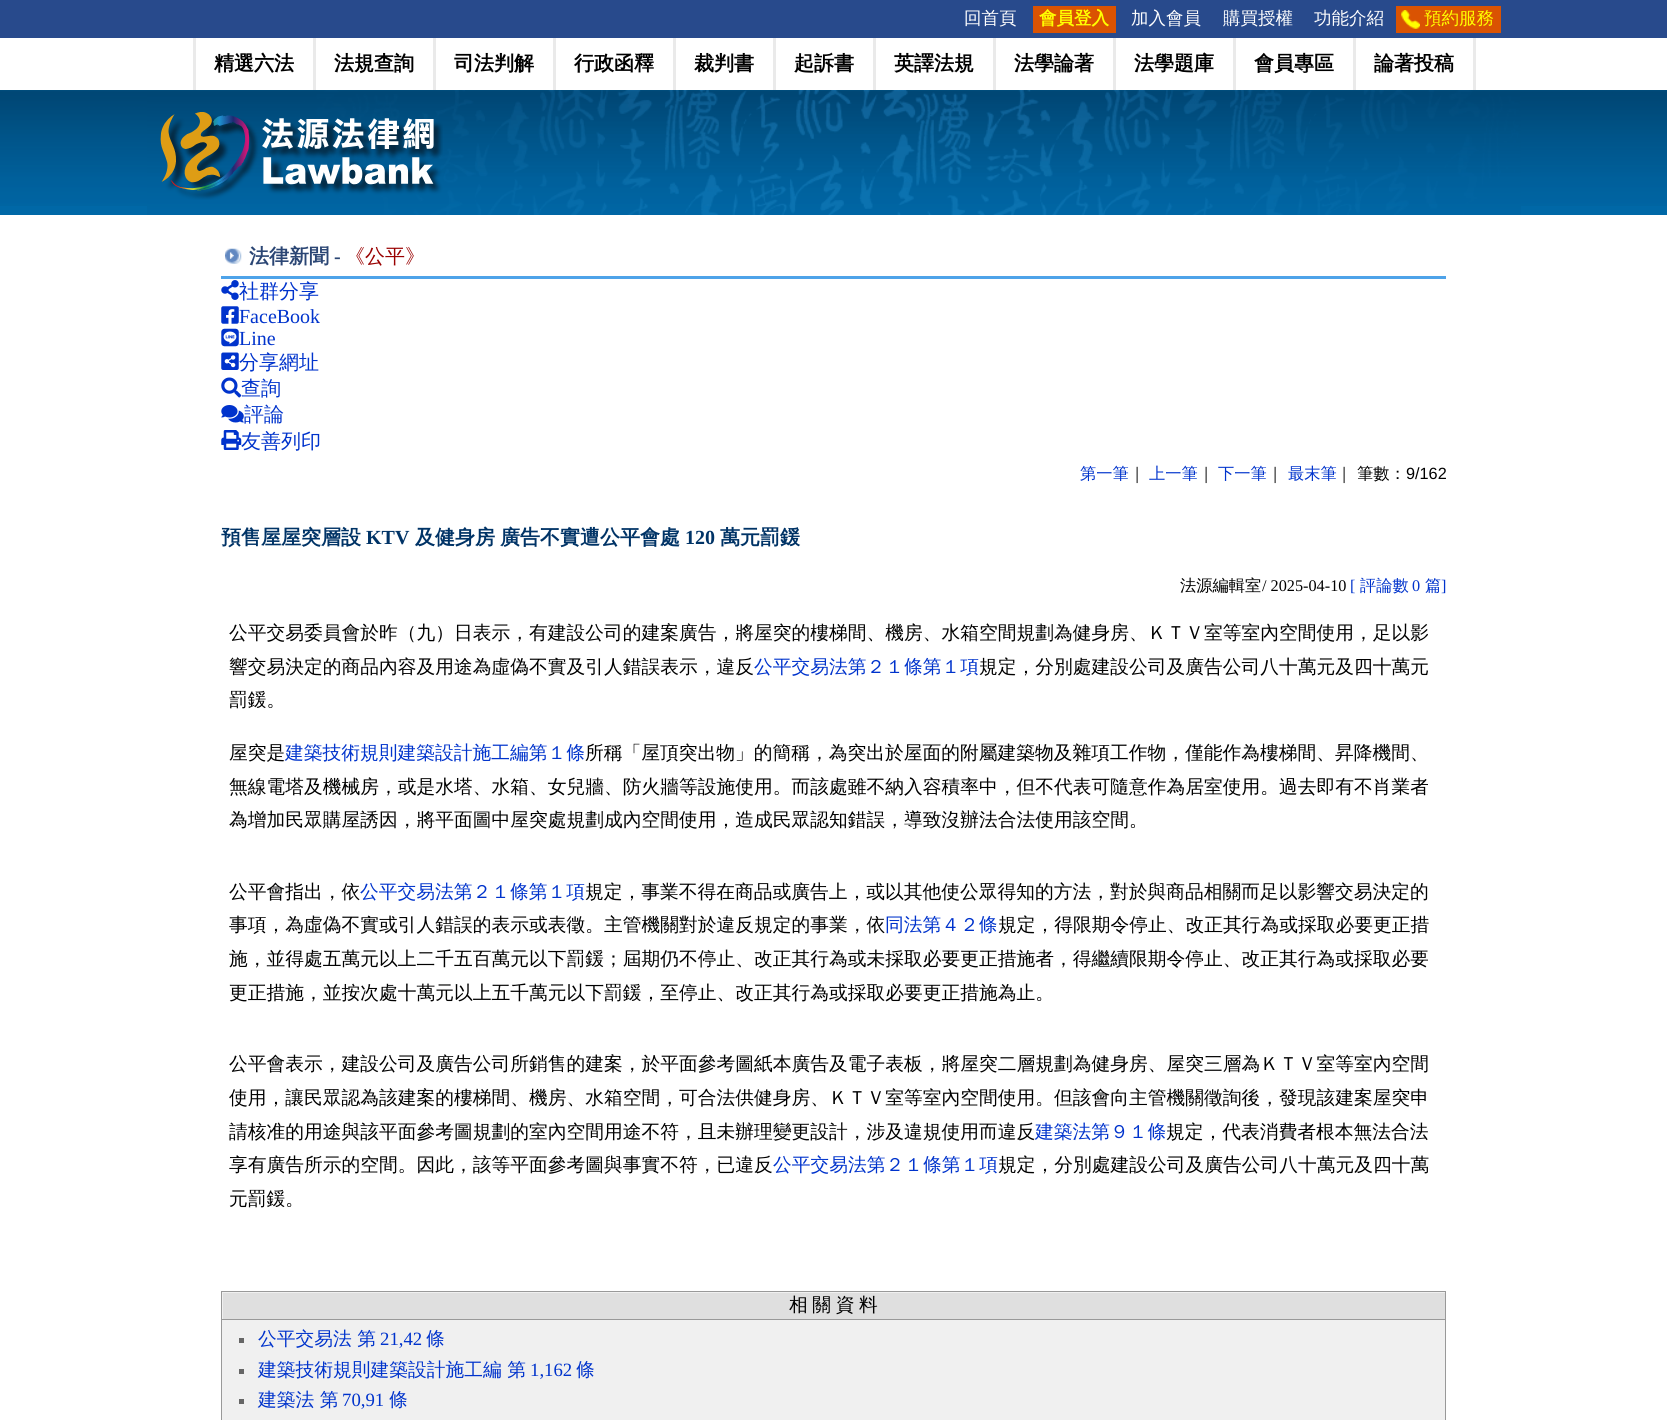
import math
import cairo


def use_color(cr, r, g, b):
  cr.set_source_rgb(r / 255, g / 255, b / 255)

def text(cr, x, y, s, family, size, color, bold=False, italic=False):
  cr.select_font_face(family, cairo.FONT_SLANT_ITALIC if italic else cairo.FONT_SLANT_NORMAL, cairo.FONT_WEIGHT_BOLD if bold else cairo.FONT_WEIGHT_NORMAL)
  cr.set_font_size(size)
  use_color(cr, *color)
  cr.move_to(x, y)
  cr.show_text(s)

def spaced_text(cr, x, y, s, letter, word):
  cr.move_to(x, y)
  for ch in s:
    cr.show_text(ch)
    cr.rel_move_to(letter + word * (ch == ' '), 0)

def box(cr, x, y, w, h, *color):
  use_color(cr, *color)
  cr.rectangle(x, y, w, h)
  cr.fill()

def picture(cr, path, x, y, w, h):
  cr.save()
  cr.set_source_surface(cairo.ImageSurface.create_from_png(path), x, y)
  cr.rectangle(x, y, w, h)
  cr.fill()
  cr.restore()

def draw(cr):
  use_color(cr, 255, 255, 255)
  cr.paint()
  box(cr, 0, 0, 1667, 38, 40, 74, 140)
  box(cr, 1033, 6, 83, 27, 218, 83, 2)
  box(cr, 1396, 6, 105, 27, 218, 83, 2)
  picture(cr, "img_01.png", 1401, 10, 19, 19)
  box(cr, 193, 38, 3, 52, 234, 234, 234)
  box(cr, 313, 38, 3, 52, 234, 234, 234)
  box(cr, 433, 38, 3, 52, 234, 234, 234)
  box(cr, 553, 38, 3, 52, 234, 234, 234)
  box(cr, 673, 38, 3, 52, 234, 234, 234)
  box(cr, 773, 38, 3, 52, 234, 234, 234)
  box(cr, 873, 38, 3, 52, 234, 234, 234)
  box(cr, 993, 38, 3, 52, 234, 234, 234)
  box(cr, 1113, 38, 3, 52, 234, 234, 234)
  box(cr, 1233, 38, 3, 52, 234, 234, 234)
  box(cr, 1473, 38, 3, 52, 234, 234, 234)
  box(cr, 1353, 38, 3, 52, 234, 234, 234)
  box(cr, 0, 206, 1667, 9, 0, 104, 167)
  picture(cr, "img_02.png", 0, 90, 1667, 116)
  picture(cr, "img_03.png", 147, 90, 1374, 125)
  picture(cr, "img_04.png", 160, 112, 283, 88)
  picture(cr, "img_05.png", 225, 248, 17, 16)
  box(cr, 221, 276, 1225, 3, 78, 163, 233)
  picture(cr, "img_06.png", 221, 280, 18, 20)
  picture(cr, "img_07.png", 221, 306, 18, 18)
  picture(cr, "img_08.png", 221, 328, 18, 19)
  picture(cr, "img_09.png", 221, 352, 18, 18)
  picture(cr, "img_10.png", 221, 377, 21, 21)
  picture(cr, "img_11.png", 221, 405, 23, 18)
  picture(cr, "img_12.png", 221, 430, 21, 20)
  box(cr, 222, 1292, 1223, 128, 240, 240, 240)
  box(cr, 221, 1291, 1225, 1, 153, 153, 153)
  box(cr, 1445, 1291, 1, 129, 153, 153, 153)
  box(cr, 221, 1291, 1, 129, 153, 153, 153)
  box(cr, 223, 1293, 1222, 26, 223, 223, 223)
  box(cr, 221, 1319, 1225, 1, 153, 153, 153)
  box(cr, 239, 1338, 5, 5, 102, 102, 102)
  box(cr, 239, 1369, 5, 5, 102, 102, 102)
  box(cr, 239, 1399, 5, 5, 102, 102, 102)
  text(cr, 964, 24, "回首頁", "WenQuanYi Zen Hei Medium", 17.5, (255, 255, 255))
  text(cr, 1039, 24, "會員登入", "WenQuanYi Zen Hei", 17.5, (255, 255, 0), bold=True)
  text(cr, 1131, 24, "加入會員", "WenQuanYi Zen Hei Medium", 17.5, (255, 255, 255))
  text(cr, 1223, 24, "購買授權", "WenQuanYi Zen Hei Medium", 17.5, (255, 255, 255))
  text(cr, 1314, 24, "功能介紹", "WenQuanYi Zen Hei Medium", 17.5, (255, 255, 255))
  text(cr, 1424, 24, "預約服務", "WenQuanYi Zen Hei Medium", 17.5, (255, 255, 0))
  text(cr, 214, 70, "精選六法", "WenQuanYi Zen Hei", 20, (0, 0, 0), bold=True)
  text(cr, 334, 70, "法規查詢", "WenQuanYi Zen Hei", 20, (0, 0, 0), bold=True)
  text(cr, 454, 70, "司法判解", "WenQuanYi Zen Hei", 20, (0, 0, 0), bold=True)
  text(cr, 574, 70, "行政函釋", "WenQuanYi Zen Hei", 20, (0, 0, 0), bold=True)
  text(cr, 694, 70, "裁判書", "WenQuanYi Zen Hei", 20, (0, 0, 0), bold=True)
  text(cr, 794, 70, "起訴書", "WenQuanYi Zen Hei", 20, (0, 0, 0), bold=True)
  text(cr, 894, 70, "英譯法規", "WenQuanYi Zen Hei", 20, (0, 0, 0), bold=True)
  text(cr, 1014, 70, "法學論著", "WenQuanYi Zen Hei", 20, (0, 0, 0), bold=True)
  text(cr, 1134, 70, "法學題庫", "WenQuanYi Zen Hei", 20, (0, 0, 0), bold=True)
  text(cr, 1254, 70, "會員專區", "WenQuanYi Zen Hei", 20, (0, 0, 0), bold=True)
  text(cr, 1374, 70, "論著投稿", "WenQuanYi Zen Hei", 20, (0, 0, 0), bold=True)
  text(cr, 249, 263, "法律新聞", "WenQuanYi Zen Hei", 20, (43, 70, 116), bold=True)
  text(cr, 334, 263, "-", "Liberation Serif", 20, (43, 70, 116), bold=True)
  text(cr, 345, 263, "《公平》", "WenQuanYi Zen Hei Medium", 20, (153, 0, 0))
  text(cr, 239, 298, "社群分享", "WenQuanYi Zen Hei Medium", 20, (0, 51, 204))
  text(cr, 239, 323, "FaceBook", "Liberation Serif", 20, (0, 51, 204))
  text(cr, 239, 345, "Line", "Liberation Serif", 20, (0, 51, 204))
  text(cr, 239, 369, "分享網址", "WenQuanYi Zen Hei Medium", 20, (0, 51, 204))
  text(cr, 241, 395, "查詢", "WenQuanYi Zen Hei Medium", 20, (0, 51, 204))
  text(cr, 244, 421, "評論", "WenQuanYi Zen Hei Medium", 20, (0, 51, 204))
  text(cr, 241, 448, "友善列印", "WenQuanYi Zen Hei Medium", 20, (0, 51, 204))
  text(cr, 1080, 479, "第一筆", "WenQuanYi Zen Hei Medium", 16.25, (0, 51, 204))
  text(cr, 1129, 479, "｜", "WenQuanYi Zen Hei Medium", 16.25, (0, 0, 0))
  text(cr, 1149, 479, "上一筆", "WenQuanYi Zen Hei Medium", 16.25, (0, 51, 204))
  text(cr, 1198, 479, "｜", "WenQuanYi Zen Hei Medium", 16.25, (0, 0, 0))
  text(cr, 1218, 479, "下一筆", "WenQuanYi Zen Hei Medium", 16.25, (0, 51, 204))
  text(cr, 1267, 479, "｜", "WenQuanYi Zen Hei Medium", 16.25, (0, 0, 0))
  text(cr, 1288, 479, "最末筆", "WenQuanYi Zen Hei Medium", 16.25, (0, 51, 204))
  text(cr, 1336, 479, "｜", "WenQuanYi Zen Hei Medium", 16.25, (0, 0, 0))
  text(cr, 1357, 479, "筆數：", "WenQuanYi Zen Hei Medium", 16.25, (0, 0, 0))
  text(cr, 1406, 479, "9/162", "Liberation Sans", 16.25, (0, 0, 0))
  text(cr, 221, 544, "預售屋屋突層設", "WenQuanYi Zen Hei", 20, (0, 51, 102), bold=True)
  text(cr, 366, 544, "KTV", "Liberation Serif", 20, (0, 51, 102), bold=True)
  text(cr, 415, 544, "及健身房", "WenQuanYi Zen Hei", 20, (0, 51, 102), bold=True)
  text(cr, 500, 544, "廣告不實遭公平會處", "WenQuanYi Zen Hei", 20, (0, 51, 102), bold=True)
  text(cr, 685, 544, "120", "Liberation Serif", 20, (0, 51, 102), bold=True)
  text(cr, 720, 544, "萬元罰鍰", "WenQuanYi Zen Hei", 20, (0, 51, 102), bold=True)
  text(cr, 1180, 591, "法源編輯室", "WenQuanYi Zen Hei Medium", 16.25, (0, 0, 0))
  text(cr, 1262, 591, "/ 2025-04-10", "Liberation Serif", 16.25, (0, 0, 0))
  text(cr, 1350, 591, "[", "Liberation Serif", 16.25, (0, 51, 204))
  text(cr, 1360, 591, "評論數", "WenQuanYi Zen Hei Medium", 16.25, (0, 51, 204))
  text(cr, 1412, 591, "0", "Liberation Serif", 16.25, (0, 51, 204))
  text(cr, 1425, 591, "篇", "WenQuanYi Zen Hei Medium", 16.25, (0, 51, 204))
  text(cr, 1441, 591, "]", "Liberation Serif", 16.25, (0, 51, 204))
  text(cr, 229, 639, "公平交易委員會於昨（九）日表示，有建設公司的建案廣告，將屋突的樓梯間、機房、水箱空間規劃為健身房、ＫＴＶ室等室內空間使用，足以影", "WenQuanYi Zen Hei Medium", 18.75, (0, 0, 0))
  text(cr, 229, 673, "響交易決定的商品內容及用途為虛偽不實及引人錯誤表示，違反", "WenQuanYi Zen Hei Medium", 18.75, (0, 0, 0))
  text(cr, 754, 673, "公平交易法第２１條第１項", "WenQuanYi Zen Hei Medium", 18.75, (0, 51, 204))
  text(cr, 979, 673, "規定，分別處建設公司及廣告公司八十萬元及四十萬元", "WenQuanYi Zen Hei Medium", 18.75, (0, 0, 0))
  text(cr, 229, 706, "罰鍰。", "WenQuanYi Zen Hei Medium", 18.75, (0, 0, 0))
  text(cr, 229, 759, "屋突是", "WenQuanYi Zen Hei Medium", 18.75, (0, 0, 0))
  text(cr, 285, 759, "建築技術規則建築設計施工編第１條", "WenQuanYi Zen Hei Medium", 18.75, (0, 51, 204))
  text(cr, 585, 759, "所稱「屋頂突出物」的簡稱，為突出於屋面的附屬建築物及雜項工作物，僅能作為樓梯間、昇降機間、", "WenQuanYi Zen Hei Medium", 18.75, (0, 0, 0))
  text(cr, 229, 793, "無線電塔及機械房，或是水塔、水箱、女兒牆、防火牆等設施使用。而該處雖不納入容積率中，但不代表可隨意作為居室使用。過去即有不肖業者", "WenQuanYi Zen Hei Medium", 18.75, (0, 0, 0))
  text(cr, 229, 826, "為增加民眾購屋誘因，將平面圖中屋突處規劃成內空間使用，造成民眾認知錯誤，導致沒辦法合法使用該空間。", "WenQuanYi Zen Hei Medium", 18.75, (0, 0, 0))
  text(cr, 229, 898, "公平會指出，依", "WenQuanYi Zen Hei Medium", 18.75, (0, 0, 0))
  text(cr, 360, 898, "公平交易法第２１條第１項", "WenQuanYi Zen Hei Medium", 18.75, (0, 51, 204))
  text(cr, 585, 898, "規定，事業不得在商品或廣告上，或以其他使公眾得知的方法，對於與商品相關而足以影響交易決定的", "WenQuanYi Zen Hei Medium", 18.75, (0, 0, 0))
  text(cr, 229, 931, "事項，為虛偽不實或引人錯誤的表示或表徵。主管機關對於違反規定的事業，依", "WenQuanYi Zen Hei Medium", 18.75, (0, 0, 0))
  text(cr, 885, 931, "同法第４２條", "WenQuanYi Zen Hei Medium", 18.75, (0, 51, 204))
  text(cr, 998, 931, "規定，得限期令停止、改正其行為或採取必要更正措", "WenQuanYi Zen Hei Medium", 18.75, (0, 0, 0))
  text(cr, 229, 965, "施，並得處五萬元以上二千五百萬元以下罰鍰；屆期仍不停止、改正其行為或未採取必要更正措施者，得繼續限期令停止、改正其行為或採取必要", "WenQuanYi Zen Hei Medium", 18.75, (0, 0, 0))
  text(cr, 229, 999, "更正措施，並按次處十萬元以上五千萬元以下罰鍰，至停止、改正其行為或採取必要更正措施為止。", "WenQuanYi Zen Hei Medium", 18.75, (0, 0, 0))
  text(cr, 229, 1070, "公平會表示，建設公司及廣告公司所銷售的建案，於平面參考圖紙本廣告及電子表板，將屋突二層規劃為健身房、屋突三層為ＫＴＶ室等室內空間", "WenQuanYi Zen Hei Medium", 18.75, (0, 0, 0))
  text(cr, 229, 1104, "使用，讓民眾認為該建案的樓梯間、機房、水箱空間，可合法供健身房、ＫＴＶ室等室內空間使用。但該會向主管機關徵詢後，發現該建案屋突申", "WenQuanYi Zen Hei Medium", 18.75, (0, 0, 0))
  text(cr, 229, 1138, "請核准的用途與該平面參考圖規劃的室內空間用途不符，且未辦理變更設計，涉及違規使用而違反", "WenQuanYi Zen Hei Medium", 18.75, (0, 0, 0))
  text(cr, 1035, 1138, "建築法第９１條", "WenQuanYi Zen Hei Medium", 18.75, (0, 51, 204))
  text(cr, 1166, 1138, "規定，代表消費者根本無法合法", "WenQuanYi Zen Hei Medium", 18.75, (0, 0, 0))
  text(cr, 229, 1171, "享有廣告所示的空間。因此，該等平面參考圖與事實不符，已違反", "WenQuanYi Zen Hei Medium", 18.75, (0, 0, 0))
  text(cr, 773, 1171, "公平交易法第２１條第１項", "WenQuanYi Zen Hei Medium", 18.75, (0, 51, 204))
  text(cr, 998, 1171, "規定，分別處建設公司及廣告公司八十萬元及四十萬", "WenQuanYi Zen Hei Medium", 18.75, (0, 0, 0))
  text(cr, 229, 1205, "元罰鍰。", "WenQuanYi Zen Hei Medium", 18.75, (0, 0, 0))
  spaced_text(cr, 789, 1311, "相 關 資 料", 0, -1)
  text(cr, 258, 1345, "公平交易法 第", "WenQuanYi Zen Hei Medium", 18.75, (0, 51, 204))
  text(cr, 380, 1345, "21,42", "Liberation Serif", 18.75, (0, 51, 204))
  text(cr, 426, 1345, "條", "WenQuanYi Zen Hei Medium", 18.75, (0, 51, 204))
  text(cr, 258, 1376, "建築技術規則建築設計施工編 第", "WenQuanYi Zen Hei Medium", 18.75, (0, 51, 204))
  text(cr, 530, 1376, "1,162", "Liberation Serif", 18.75, (0, 51, 204))
  text(cr, 576, 1376, "條", "WenQuanYi Zen Hei Medium", 18.75, (0, 51, 204))
  text(cr, 258, 1406, "建築法 第", "WenQuanYi Zen Hei Medium", 18.75, (0, 51, 204))
  text(cr, 342, 1406, "70,91", "Liberation Serif", 18.75, (0, 51, 204))
  text(cr, 389, 1406, "條", "WenQuanYi Zen Hei Medium", 18.75, (0, 51, 204))


surface = cairo.ImageSurface(cairo.FORMAT_RGB24, 1667, 1420)
cr = cairo.Context(surface)
options = cairo.FontOptions()
options.set_hint_metrics(cairo.HINT_METRICS_OFF)
options.set_hint_style(cairo.HINT_STYLE_NONE)
cr.set_font_options(options)
cr.set_miter_limit(4)
draw(cr)
surface.write_to_png("out.png")
